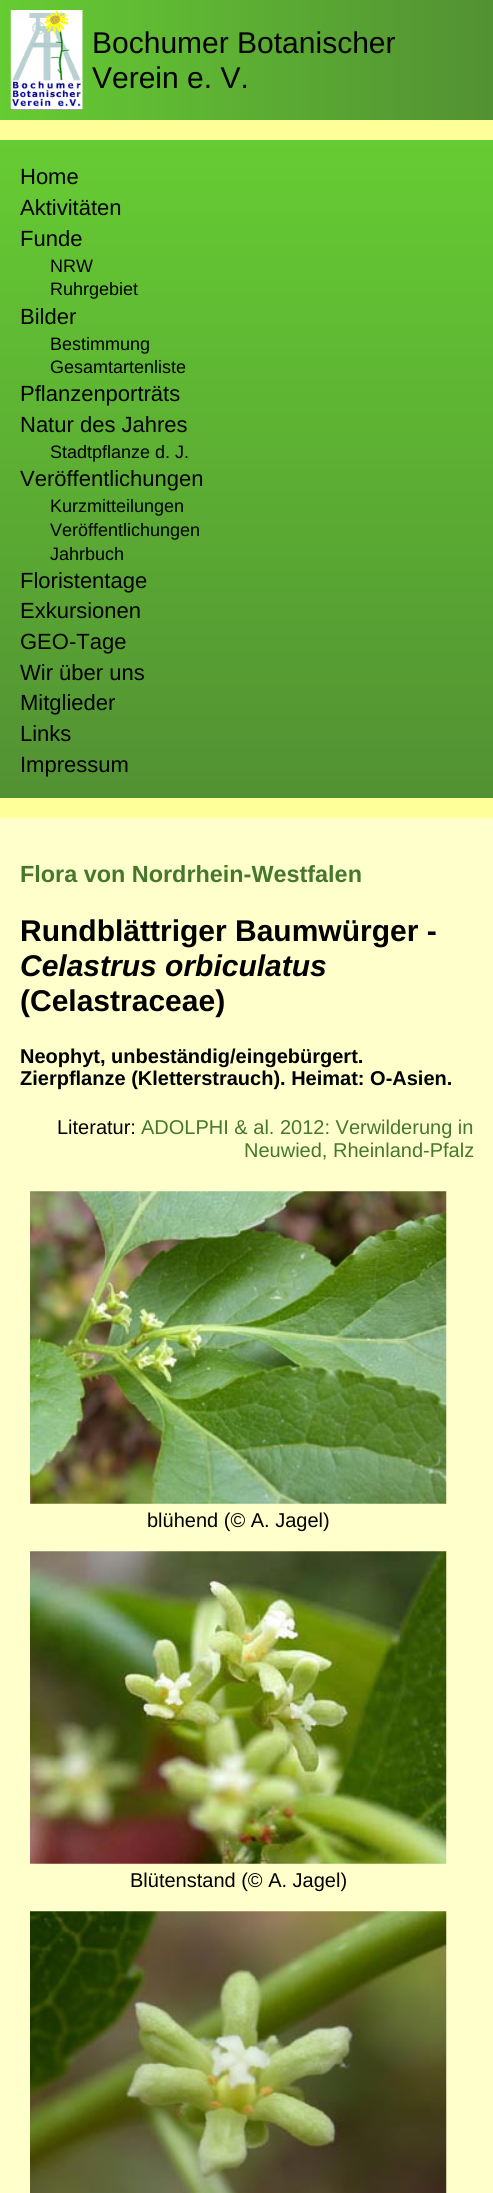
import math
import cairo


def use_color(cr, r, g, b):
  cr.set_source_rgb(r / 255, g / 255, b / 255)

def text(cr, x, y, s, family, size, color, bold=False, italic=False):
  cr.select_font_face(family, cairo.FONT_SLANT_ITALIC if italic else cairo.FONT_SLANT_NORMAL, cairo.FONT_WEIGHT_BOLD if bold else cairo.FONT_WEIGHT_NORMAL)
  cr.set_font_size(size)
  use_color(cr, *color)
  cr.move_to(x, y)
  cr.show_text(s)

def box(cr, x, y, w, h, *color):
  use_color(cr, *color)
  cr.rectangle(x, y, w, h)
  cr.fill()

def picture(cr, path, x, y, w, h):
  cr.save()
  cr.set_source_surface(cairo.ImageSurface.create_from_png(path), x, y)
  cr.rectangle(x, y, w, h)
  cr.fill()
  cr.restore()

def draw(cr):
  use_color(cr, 255, 255, 153)
  cr.paint()
  gradient = cairo.LinearGradient(0, 60, 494, 60)
  gradient.add_color_stop_rgba(0, 0.4, 0.8, 0.2, 1)
  gradient.add_color_stop_rgba(1, 0.322, 0.569, 0.2, 1)
  cr.set_source(gradient)
  cr.rectangle(0, 0, 493, 120)
  cr.fill()
  picture(cr, "img_01.png", 10, 10, 73, 100)
  gradient = cairo.LinearGradient(247, 140, 247, 798)
  gradient.add_color_stop_rgba(0, 0.4, 0.8, 0.2, 1)
  gradient.add_color_stop_rgba(1, 0.322, 0.569, 0.2, 1)
  cr.set_source(gradient)
  cr.rectangle(0, 140, 493, 658)
  cr.fill()
  box(cr, 0, 818, 493, 1375, 255, 255, 204)
  picture(cr, "img_02.png", 30, 1191, 417, 313)
  picture(cr, "img_03.png", 30, 1551, 417, 313)
  picture(cr, "img_04.png", 30, 1911, 417, 282)
  text(cr, 92, 53, "Bochumer Botanischer", "Liberation Sans", 30, (0, 0, 0))
  text(cr, 92, 88, "Verein e. V.", "Liberation Sans", 30, (0, 0, 0))
  text(cr, 20, 184, "Home", "Liberation Sans", 22, (0, 0, 0))
  text(cr, 20, 215, "Aktivitäten", "Liberation Sans", 22, (0, 0, 0))
  text(cr, 20, 246, "Funde", "Liberation Sans", 22, (0, 0, 0))
  text(cr, 50, 272, "NRW", "Liberation Sans", 18, (0, 0, 0))
  text(cr, 50, 295, "Ruhrgebiet", "Liberation Sans", 18, (0, 0, 0))
  text(cr, 20, 324, "Bilder", "Liberation Sans", 22, (0, 0, 0))
  text(cr, 50, 350, "Bestimmung", "Liberation Sans", 18, (0, 0, 0))
  text(cr, 50, 373, "Gesamtartenliste", "Liberation Sans", 18, (0, 0, 0))
  text(cr, 20, 401, "Pflanzenporträts", "Liberation Sans", 22, (0, 0, 0))
  text(cr, 20, 432, "Natur des Jahres", "Liberation Sans", 22, (0, 0, 0))
  text(cr, 50, 458, "Stadtpflanze d. J.", "Liberation Sans", 18, (0, 0, 0))
  text(cr, 20, 486, "Veröffentlichungen", "Liberation Sans", 22, (0, 0, 0))
  text(cr, 50, 512, "Kurzmitteilungen", "Liberation Sans", 18, (0, 0, 0))
  text(cr, 50, 536, "Veröffentlichungen", "Liberation Sans", 18, (0, 0, 0))
  text(cr, 50, 560, "Jahrbuch", "Liberation Sans", 18, (0, 0, 0))
  text(cr, 20, 588, "Floristentage", "Liberation Sans", 22, (0, 0, 0))
  text(cr, 20, 618, "Exkursionen", "Liberation Sans", 22, (0, 0, 0))
  text(cr, 20, 649, "GEO-Tage", "Liberation Sans", 22, (0, 0, 0))
  text(cr, 20, 680, "Wir über uns", "Liberation Sans", 22, (0, 0, 0))
  text(cr, 20, 710, "Mitglieder", "Liberation Sans", 22, (0, 0, 0))
  text(cr, 20, 741, "Links", "Liberation Sans", 22, (0, 0, 0))
  text(cr, 20, 772, "Impressum", "Liberation Sans", 22, (0, 0, 0))
  text(cr, 20, 882, "Flora von Nordrhein-Westfalen", "Liberation Sans", 23.4, (69, 119, 44), bold=True)
  text(cr, 20, 941, "Rundblättriger Baumwürger -", "Liberation Sans", 30, (0, 0, 0), bold=True)
  text(cr, 20, 976, "Celastrus orbiculatus", "Liberation Sans", 30, (0, 0, 0), bold=True, italic=True)
  text(cr, 20, 1011, "(Celastraceae)", "Liberation Sans", 30, (0, 0, 0), bold=True)
  text(cr, 20, 1063, "Neophyt, unbeständig/eingebürgert.", "Liberation Sans", 20, (0, 0, 0), bold=True)
  text(cr, 20, 1085, "Zierpflanze (Kletterstrauch). Heimat: O-Asien.", "Liberation Sans", 20, (0, 0, 0), bold=True)
  text(cr, 57, 1134, "Literatur:", "Liberation Sans", 20, (0, 0, 0))
  text(cr, 141, 1134, "ADOLPHI & al. 2012: Verwilderung in", "Liberation Sans", 20, (69, 119, 44))
  text(cr, 244, 1157, "Neuwied, Rheinland-Pfalz", "Liberation Sans", 20, (69, 119, 44))
  text(cr, 147, 1527, "blühend (© A. Jagel)", "Liberation Sans", 20, (0, 0, 0))
  text(cr, 130, 1887, "Blütenstand (© A. Jagel)", "Liberation Sans", 20, (0, 0, 0))


surface = cairo.ImageSurface(cairo.FORMAT_RGB24, 493, 2193)
cr = cairo.Context(surface)
options = cairo.FontOptions()
options.set_hint_metrics(cairo.HINT_METRICS_OFF)
options.set_hint_style(cairo.HINT_STYLE_NONE)
cr.set_font_options(options)
cr.set_miter_limit(4)
draw(cr)
surface.write_to_png("out.png")
